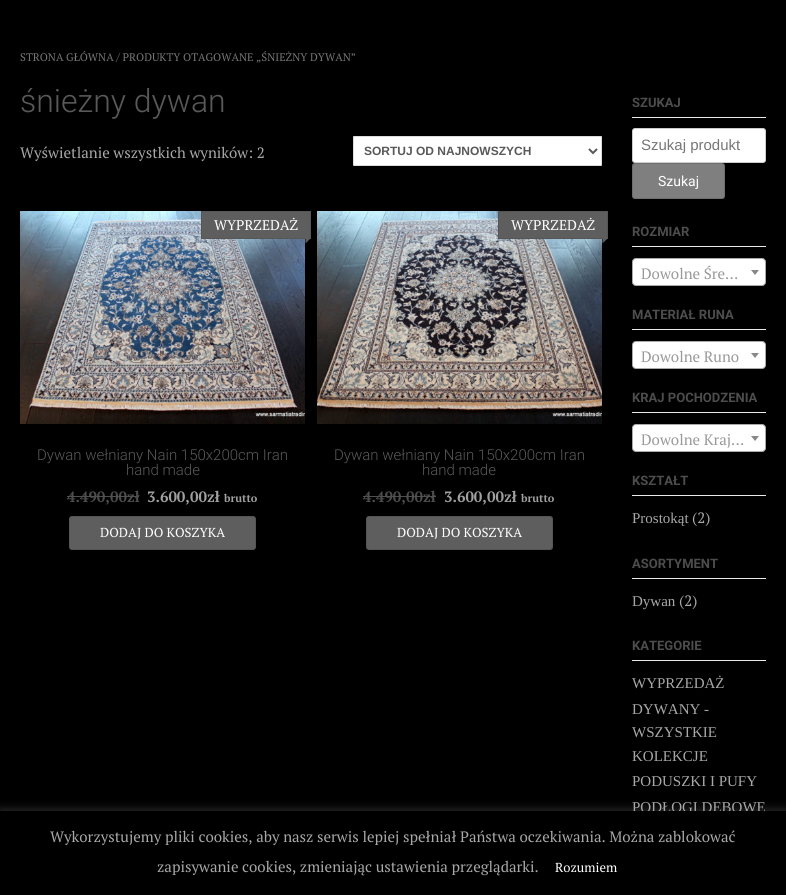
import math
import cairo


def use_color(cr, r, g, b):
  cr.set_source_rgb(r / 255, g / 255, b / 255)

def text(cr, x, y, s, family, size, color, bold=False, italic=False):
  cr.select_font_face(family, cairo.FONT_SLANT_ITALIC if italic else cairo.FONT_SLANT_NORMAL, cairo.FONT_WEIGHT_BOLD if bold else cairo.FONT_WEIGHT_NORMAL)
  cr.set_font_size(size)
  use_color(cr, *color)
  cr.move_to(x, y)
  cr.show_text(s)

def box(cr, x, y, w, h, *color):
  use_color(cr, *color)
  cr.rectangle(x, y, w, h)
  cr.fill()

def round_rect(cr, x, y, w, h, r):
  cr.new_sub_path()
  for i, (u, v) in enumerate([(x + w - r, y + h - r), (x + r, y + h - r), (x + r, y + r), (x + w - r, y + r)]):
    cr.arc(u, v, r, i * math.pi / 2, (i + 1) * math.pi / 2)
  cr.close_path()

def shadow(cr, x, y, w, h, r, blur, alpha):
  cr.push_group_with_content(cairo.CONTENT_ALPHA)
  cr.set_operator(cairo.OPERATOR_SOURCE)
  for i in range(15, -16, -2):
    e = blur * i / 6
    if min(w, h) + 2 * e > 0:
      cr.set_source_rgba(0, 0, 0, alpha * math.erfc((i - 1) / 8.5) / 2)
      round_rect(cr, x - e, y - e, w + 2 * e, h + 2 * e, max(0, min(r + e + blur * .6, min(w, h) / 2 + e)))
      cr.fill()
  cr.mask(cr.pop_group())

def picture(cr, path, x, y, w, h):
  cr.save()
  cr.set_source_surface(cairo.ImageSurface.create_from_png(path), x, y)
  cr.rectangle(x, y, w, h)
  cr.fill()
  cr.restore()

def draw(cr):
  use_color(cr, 0, 0, 0)
  cr.paint()
  use_color(cr, 255, 255, 255)
  round_rect(cr, 353.5, 136.5, 248, 29, 0.5)
  cr.fill_preserve()
  use_color(cr, 220, 220, 220)
  cr.set_line_width(1)
  cr.stroke()
  cr.new_path()
  cr.move_to(589, 149)
  cr.line_to(593, 153)
  cr.line_to(597, 149)
  use_color(cr, 89, 89, 89)
  cr.set_line_width(2)
  cr.stroke()
  picture(cr, "img_01.png", 20, 211, 285, 213)
  use_color(cr, 94, 94, 94)
  cr.rectangle(201.5, 211.5, 109, 27)
  cr.fill_preserve()
  use_color(cr, 86, 86, 86)
  cr.set_line_width(1)
  cr.stroke()
  use_color(cr, 94, 94, 94)
  cr.new_path()
  cr.move_to(311, 238)
  cr.line_to(305.5, 243.5)
  cr.line_to(305.5, 238)
  cr.close_path()
  cr.fill()
  round_rect(cr, 69, 516, 187, 34, 3)
  cr.fill()
  round_rect(cr, 69.5, 516.5, 186, 33, 2.5)
  cr.set_source_rgba(0, 0, 0, 0.1)
  cr.stroke()
  picture(cr, "img_02.png", 317, 211, 285, 213)
  use_color(cr, 94, 94, 94)
  cr.rectangle(498.5, 211.5, 109, 27)
  cr.fill_preserve()
  use_color(cr, 86, 86, 86)
  cr.stroke()
  use_color(cr, 94, 94, 94)
  cr.new_path()
  cr.move_to(608, 238)
  cr.line_to(602.5, 243.5)
  cr.line_to(602.5, 238)
  cr.close_path()
  cr.fill()
  round_rect(cr, 366, 516, 187, 34, 3)
  cr.fill()
  round_rect(cr, 366.5, 516.5, 186, 33, 2.5)
  cr.set_source_rgba(0, 0, 0, 0.1)
  cr.stroke()
  box(cr, 632, 117, 134, 1, 234, 234, 234)
  use_color(cr, 255, 255, 255)
  round_rect(cr, 632.5, 128.5, 133, 34, 2.5)
  cr.fill_preserve()
  use_color(cr, 204, 204, 204)
  cr.stroke()
  use_color(cr, 127, 127, 127)
  round_rect(cr, 632, 163, 93, 36, 3)
  cr.fill()
  round_rect(cr, 632.5, 163.5, 92, 35, 2.5)
  cr.set_source_rgba(0, 0, 0, 0.14)
  cr.stroke()
  box(cr, 632, 246, 134, 1, 234, 234, 234)
  use_color(cr, 255, 255, 255)
  round_rect(cr, 632.5, 258.5, 133, 27, 3.5)
  cr.fill_preserve()
  use_color(cr, 170, 170, 170)
  cr.stroke()
  use_color(cr, 136, 136, 136)
  cr.new_path()
  cr.move_to(751, 270)
  cr.line_to(759, 270)
  cr.line_to(755, 275)
  cr.close_path()
  cr.fill()
  box(cr, 632, 329, 134, 1, 234, 234, 234)
  use_color(cr, 255, 255, 255)
  round_rect(cr, 632.5, 341.5, 133, 27, 3.5)
  cr.fill_preserve()
  use_color(cr, 170, 170, 170)
  cr.stroke()
  use_color(cr, 136, 136, 136)
  cr.new_path()
  cr.move_to(751, 353)
  cr.line_to(759, 353)
  cr.line_to(755, 358)
  cr.close_path()
  cr.fill()
  box(cr, 632, 412, 134, 1, 234, 234, 234)
  use_color(cr, 255, 255, 255)
  round_rect(cr, 632.5, 424.5, 133, 27, 3.5)
  cr.fill_preserve()
  use_color(cr, 170, 170, 170)
  cr.stroke()
  use_color(cr, 136, 136, 136)
  cr.new_path()
  cr.move_to(751, 436)
  cr.line_to(759, 436)
  cr.line_to(755, 441)
  cr.close_path()
  cr.fill()
  box(cr, 632, 495, 134, 1, 234, 234, 234)
  box(cr, 632, 578, 134, 1, 234, 234, 234)
  box(cr, 632, 660, 134, 1, 234, 234, 234)
  use_color(cr, 172, 171, 171)
  shadow(cr, 0, 810, 786, 84, 0, 5, 0.3)
  text(cr, 20, 61, "STRONA GŁÓWNA", "PT Serif", 11, (118, 118, 118))
  text(cr, 116, 61, "/ PRODUKTY OTAGOWANE „ŚNIEŻNY DYWAN”", "PT Serif", 11, (118, 118, 118))
  text(cr, 20, 112, "śnieżny dywan", "Roboto Light", 32, (89, 89, 89))
  text(cr, 20, 158, "Wyświetlanie wszystkich wyników: 2", "PT Serif", 15, (168, 168, 168))
  text(cr, 364, 155, "SORTUJ OD NAJNOWSZYCH", "Liberation Sans", 12, (89, 89, 89), bold=True)
  text(cr, 214, 230, "WYPRZEDAŻ", "PT Serif", 14, (255, 255, 255))
  text(cr, 37, 460, "Dywan wełniany Nain 150x200cm Iran", "Roboto Light", 15, (89, 89, 89))
  text(cr, 126, 475, "hand made", "Roboto Light", 15, (89, 89, 89))
  text(cr, 67, 502, "4.490,00zł", "PT Serif", 15, (77, 77, 77), bold=True)
  box(cr, 67, 496, 72, 1, 80, 80, 80)
  text(cr, 147, 502, "3.600,00zł", "PT Serif", 15, (160, 160, 160), bold=True)
  text(cr, 224, 502, "brutto", "PT Serif", 11, (160, 160, 160), bold=True)
  text(cr, 100, 537, "DODAJ DO KOSZYKA", "PT Serif", 13, (255, 255, 255))
  text(cr, 511, 230, "WYPRZEDAŻ", "PT Serif", 14, (255, 255, 255))
  text(cr, 334, 460, "Dywan wełniany Nain 150x200cm Iran", "Roboto Light", 15, (89, 89, 89))
  text(cr, 422, 475, "hand made", "Roboto Light", 15, (89, 89, 89))
  text(cr, 363, 502, "4.490,00zł", "PT Serif", 15, (77, 77, 77), bold=True)
  box(cr, 363, 496, 73, 1, 80, 80, 80)
  text(cr, 444, 502, "3.600,00zł", "PT Serif", 15, (160, 160, 160), bold=True)
  text(cr, 521, 502, "brutto", "PT Serif", 11, (160, 160, 160), bold=True)
  text(cr, 397, 537, "DODAJ DO KOSZYKA", "PT Serif", 13, (255, 255, 255))
  text(cr, 632, 107, "SZUKAJ", "Roboto", 13, (77, 77, 77), bold=True)
  text(cr, 641, 150, "Szukaj produkt", "Liberation Sans", 15, (118, 118, 118))
  text(cr, 658, 186, "Szukaj", "Roboto", 14, (255, 255, 255))
  text(cr, 632, 236, "ROZMIAR", "Roboto", 13, (77, 77, 77), bold=True)
  text(cr, 641, 279, "Dowolne Śre…", "PT Serif", 15, (153, 153, 153))
  text(cr, 632, 319, "MATERIAŁ RUNA", "Roboto", 13, (77, 77, 77), bold=True)
  text(cr, 641, 362, "Dowolne Runo", "PT Serif", 15, (153, 153, 153))
  text(cr, 632, 402, "KRAJ POCHODZENIA", "Roboto", 13, (77, 77, 77), bold=True)
  text(cr, 641, 445, "Dowolne Kraj…", "PT Serif", 15, (153, 153, 153))
  text(cr, 632, 485, "KSZTAŁT", "Roboto", 13, (77, 77, 77), bold=True)
  text(cr, 632, 523, "Prostokąt", "Liberation Serif", 15, (168, 168, 168))
  text(cr, 692, 523, "(2)", "PT Serif", 15, (168, 168, 168))
  text(cr, 632, 568, "ASORTYMENT", "Roboto", 13, (77, 77, 77), bold=True)
  text(cr, 632, 606, "Dywan", "Liberation Serif", 15, (168, 168, 168))
  text(cr, 679, 606, "(2)", "PT Serif", 15, (168, 168, 168))
  text(cr, 632, 650, "KATEGORIE", "Roboto", 13, (77, 77, 77), bold=True)
  text(cr, 632, 688, "WYPRZEDAŻ", "Liberation Serif", 15, (168, 168, 168))
  text(cr, 632, 714, "DYWANY -", "Liberation Serif", 15, (168, 168, 168))
  text(cr, 632, 737, "WSZYSTKIE", "Liberation Serif", 15, (168, 168, 168))
  text(cr, 632, 761, "KOLEKCJE", "Liberation Serif", 15, (168, 168, 168))
  text(cr, 632, 786, "PODUSZKI I PUFY", "Liberation Serif", 15, (168, 168, 168))
  text(cr, 632, 812, "PODŁOGI DĘBOWE", "Liberation Serif", 15, (168, 168, 168))
  box(cr, 0, 811, 786, 84, 0, 0, 0)
  text(cr, 50, 842, "Wykorzystujemy pliki cookies, aby nasz serwis lepiej spełniał Państwa oczekiwania. Można zablokować", "PT Serif", 15, (168, 168, 168))
  text(cr, 157, 872, "zapisywanie cookies, zmieniając ustawienia przeglądarki.", "PT Serif", 15, (168, 168, 168))
  text(cr, 555, 872, "Rozumiem", "PT Serif", 13, (255, 255, 255))


surface = cairo.ImageSurface(cairo.FORMAT_RGB24, 786, 895)
cr = cairo.Context(surface)
options = cairo.FontOptions()
options.set_hint_metrics(cairo.HINT_METRICS_OFF)
options.set_hint_style(cairo.HINT_STYLE_NONE)
cr.set_font_options(options)
cr.set_miter_limit(4)
draw(cr)
surface.write_to_png("out.png")
